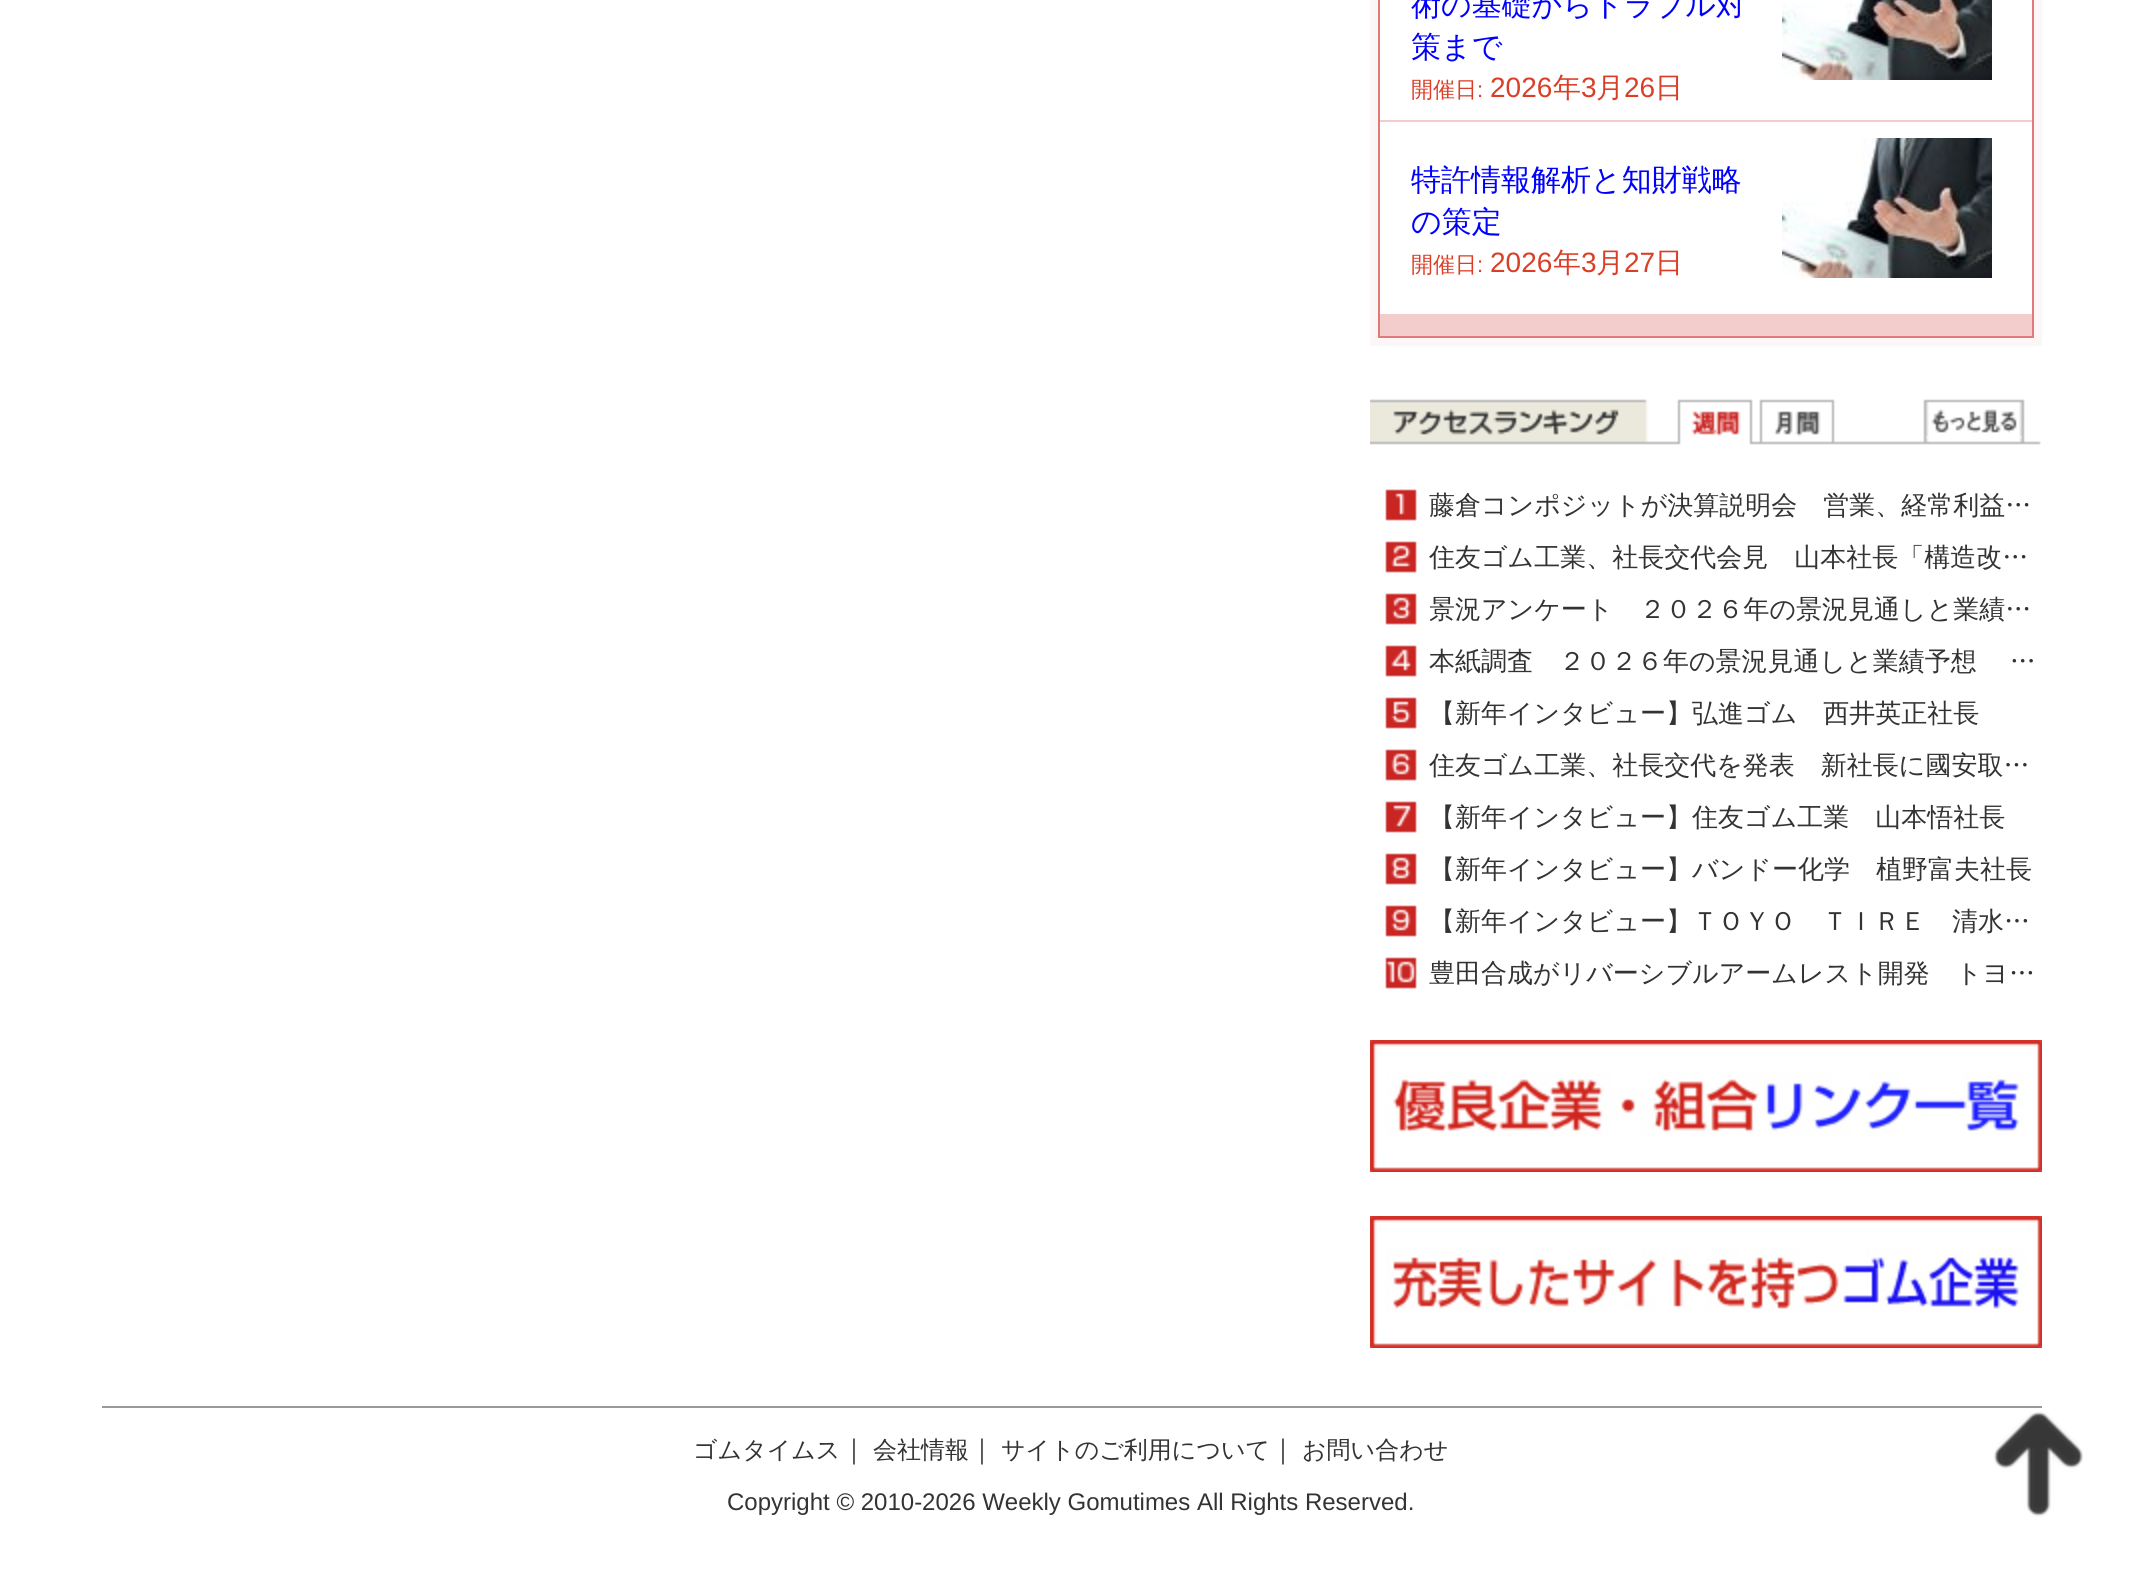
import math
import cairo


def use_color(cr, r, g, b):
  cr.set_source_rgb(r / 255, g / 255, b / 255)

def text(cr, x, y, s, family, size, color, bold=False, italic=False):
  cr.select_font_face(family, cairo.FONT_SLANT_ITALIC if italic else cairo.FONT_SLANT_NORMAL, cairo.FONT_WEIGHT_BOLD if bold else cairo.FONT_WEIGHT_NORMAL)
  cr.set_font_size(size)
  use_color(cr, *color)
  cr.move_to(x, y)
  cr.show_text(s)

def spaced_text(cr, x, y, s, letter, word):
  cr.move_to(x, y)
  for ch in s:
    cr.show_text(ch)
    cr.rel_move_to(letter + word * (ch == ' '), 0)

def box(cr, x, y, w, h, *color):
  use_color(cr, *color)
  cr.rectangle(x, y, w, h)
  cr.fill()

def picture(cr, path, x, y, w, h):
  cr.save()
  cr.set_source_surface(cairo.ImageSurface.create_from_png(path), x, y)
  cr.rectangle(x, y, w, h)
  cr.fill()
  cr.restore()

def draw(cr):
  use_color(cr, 255, 255, 255)
  cr.paint()
  use_color(cr, 225, 121, 121)
  cr.rectangle(1374, -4, 664, 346)
  cr.fill_preserve()
  use_color(cr, 253, 246, 246)
  cr.set_line_width(8)
  cr.stroke()
  box(cr, 1380, 120, 652, 216, 243, 204, 204)
  box(cr, 1380, 0, 652, 120, 255, 255, 255)
  picture(cr, "img_01.png", 1782, 0, 210, 80)
  box(cr, 1380, 122, 652, 192, 255, 255, 255)
  picture(cr, "img_02.png", 1782, 138, 210, 140)
  picture(cr, "img_03.png", 1370, 399, 671, 590)
  picture(cr, "img_04.png", 1370, 1040, 672, 132)
  picture(cr, "img_05.png", 1370, 1216, 672, 132)
  box(cr, 102, 1406, 1940, 2, 153, 153, 153)
  picture(cr, "img_06.png", 1993, 1411, 90, 106)
  text(cr, 1411, 15, "術の基礎からトラブル対", "WenQuanYi Zen Hei Medium", 30, (0, 0, 255))
  text(cr, 1411, 57, "策まで", "WenQuanYi Zen Hei Medium", 30, (0, 0, 255))
  text(cr, 1411, 97, "開催日", "WenQuanYi Zen Hei Medium", 22, (219, 62, 38))
  text(cr, 1477, 97, ":", "Liberation Sans", 22, (219, 62, 38))
  text(cr, 1490, 97, "2026", "Liberation Sans", 28, (219, 62, 38))
  text(cr, 1553, 97, "年", "WenQuanYi Zen Hei Medium", 28, (219, 62, 38))
  text(cr, 1581, 97, "3", "Liberation Sans", 28, (219, 62, 38))
  text(cr, 1596, 97, "月", "WenQuanYi Zen Hei Medium", 28, (219, 62, 38))
  text(cr, 1624, 97, "26", "Liberation Sans", 28, (219, 62, 38))
  text(cr, 1655, 97, "日", "WenQuanYi Zen Hei Medium", 28, (219, 62, 38))
  text(cr, 1411, 190, "特許情報解析と知財戦略", "WenQuanYi Zen Hei Medium", 30, (0, 0, 255))
  text(cr, 1411, 232, "の策定", "WenQuanYi Zen Hei Medium", 30, (0, 0, 255))
  text(cr, 1411, 272, "開催日", "WenQuanYi Zen Hei Medium", 22, (219, 62, 38))
  text(cr, 1477, 272, ":", "Liberation Sans", 22, (219, 62, 38))
  text(cr, 1490, 272, "2026", "Liberation Sans", 28, (219, 62, 38))
  text(cr, 1553, 272, "年", "WenQuanYi Zen Hei Medium", 28, (219, 62, 38))
  text(cr, 1581, 272, "3", "Liberation Sans", 28, (219, 62, 38))
  text(cr, 1596, 272, "月", "WenQuanYi Zen Hei Medium", 28, (219, 62, 38))
  text(cr, 1624, 272, "27", "Liberation Sans", 28, (219, 62, 38))
  text(cr, 1655, 272, "日", "WenQuanYi Zen Hei Medium", 28, (219, 62, 38))
  text(cr, 1429, 514, "藤倉コンポジットが決算説明会　営業、経常利益…", "WenQuanYi Zen Hei Medium", 26, (51, 51, 51))
  text(cr, 1429, 566, "住友ゴム工業、社長交代会見　山本社長「構造改…", "WenQuanYi Zen Hei Medium", 26, (51, 51, 51))
  cr.save()
  cr.rectangle(1430, 584, 612, 52)
  cr.clip()
  text(cr, 1429, 618, "景況アンケート　２０２６年の景況見通しと業績…", "WenQuanYi Zen Hei Medium", 26, (51, 51, 51))
  cr.restore()
  spaced_text(cr, 1429, 670, "本紙調査　２０２６年の景況見通しと業績予想 　…", 0, -1)
  text(cr, 1429, 722, "【新年インタビュー】弘進ゴム　西井英正社長", "WenQuanYi Zen Hei Medium", 26, (51, 51, 51))
  text(cr, 1429, 774, "住友ゴム工業、社長交代を発表　新社長に國安取…", "WenQuanYi Zen Hei Medium", 26, (51, 51, 51))
  text(cr, 1429, 826, "【新年インタビュー】住友ゴム工業　山本悟社長", "WenQuanYi Zen Hei Medium", 26, (51, 51, 51))
  text(cr, 1429, 878, "【新年インタビュー】バンドー化学　植野富夫社長", "WenQuanYi Zen Hei Medium", 26, (51, 51, 51))
  text(cr, 1429, 930, "【新年インタビュー】ＴＯＹＯ　ＴＩＲＥ　清水…", "WenQuanYi Zen Hei Medium", 26, (51, 51, 51))
  text(cr, 1429, 982, "豊田合成がリバーシブルアームレスト開発　トヨ…", "WenQuanYi Zen Hei Medium", 26, (51, 51, 51))
  text(cr, 693, 1458, "ゴムタイムス", "WenQuanYi Zen Hei Medium", 24, (51, 51, 51))
  text(cr, 841, 1458, "｜", "WenQuanYi Zen Hei Medium", 26, (51, 51, 51))
  text(cr, 873, 1458, "会社情報", "WenQuanYi Zen Hei Medium", 24, (51, 51, 51))
  text(cr, 969, 1458, "｜", "WenQuanYi Zen Hei Medium", 26, (51, 51, 51))
  text(cr, 1001, 1458, "サイトのご利用について", "WenQuanYi Zen Hei Medium", 24, (51, 51, 51))
  text(cr, 1270, 1458, "｜", "WenQuanYi Zen Hei Medium", 26, (51, 51, 51))
  text(cr, 1302, 1458, "お問い合わせ", "WenQuanYi Zen Hei Medium", 24, (51, 51, 51))
  text(cr, 727, 1510, "Copyright © 2010-2026 Weekly Gomutimes All Rights Reserved.", "Liberation Sans", 24, (51, 51, 51))


surface = cairo.ImageSurface(cairo.FORMAT_RGB24, 2141, 1571)
cr = cairo.Context(surface)
options = cairo.FontOptions()
options.set_hint_metrics(cairo.HINT_METRICS_OFF)
options.set_hint_style(cairo.HINT_STYLE_NONE)
cr.set_font_options(options)
cr.set_miter_limit(4)
draw(cr)
surface.write_to_png("out.png")
